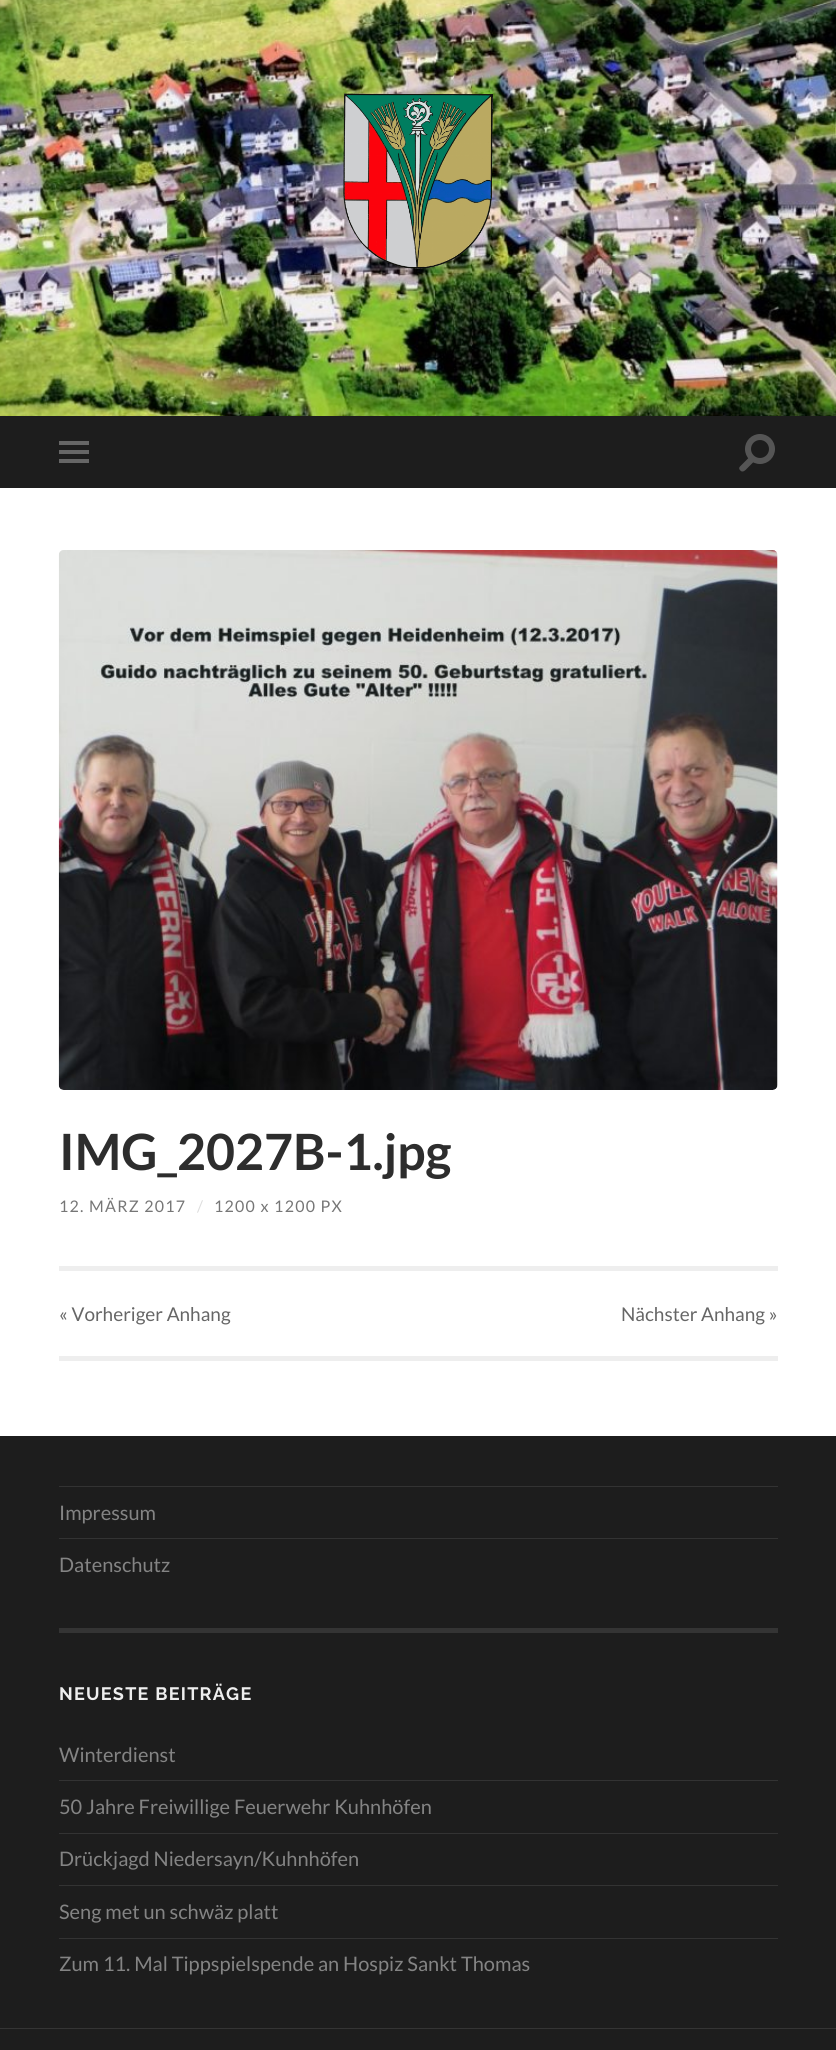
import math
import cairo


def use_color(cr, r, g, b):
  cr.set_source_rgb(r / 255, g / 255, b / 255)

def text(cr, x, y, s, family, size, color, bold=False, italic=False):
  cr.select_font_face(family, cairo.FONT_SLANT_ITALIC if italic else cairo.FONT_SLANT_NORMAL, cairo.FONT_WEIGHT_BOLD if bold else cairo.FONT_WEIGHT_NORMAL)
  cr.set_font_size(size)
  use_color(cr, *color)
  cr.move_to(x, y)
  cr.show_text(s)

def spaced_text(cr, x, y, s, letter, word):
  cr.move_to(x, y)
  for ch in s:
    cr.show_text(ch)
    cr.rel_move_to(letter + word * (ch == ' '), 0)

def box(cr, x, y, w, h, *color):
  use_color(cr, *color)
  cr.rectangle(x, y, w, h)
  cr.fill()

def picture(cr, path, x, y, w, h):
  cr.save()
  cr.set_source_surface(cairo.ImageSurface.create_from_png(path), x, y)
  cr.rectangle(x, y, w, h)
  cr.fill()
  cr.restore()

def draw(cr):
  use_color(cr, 255, 255, 255)
  cr.paint()
  picture(cr, "img_01.png", 0, 0, 836, 416)
  picture(cr, "img_02.png", 343, 93, 150, 176)
  box(cr, 0, 416, 836, 72, 29, 29, 29)
  box(cr, 59, 441, 30, 4, 102, 102, 102)
  box(cr, 59, 450, 30, 4, 102, 102, 102)
  box(cr, 59, 459, 30, 4, 102, 102, 102)
  use_color(cr, 85, 85, 85)
  cr.arc(760, 449, 15, 0, 2 * math.pi)
  cr.fill()
  use_color(cr, 29, 29, 29)
  cr.arc(760, 449, 9, 0, 2 * math.pi)
  cr.fill()
  use_color(cr, 85, 85, 85)
  cr.new_path()
  cr.move_to(740, 466.5)
  cr.line_to(750.5, 456)
  cr.line_to(755, 460.5)
  cr.line_to(748, 467.5)
  cr.curve_to(745.5, 470, 742.5, 474, 739.5, 469.5)
  cr.curve_to(739, 468.5, 739, 467.5, 740, 466.5)
  cr.close_path()
  cr.fill()
  picture(cr, "img_03.png", 58, 550, 720, 540)
  box(cr, 59, 1266, 719, 5, 238, 238, 238)
  box(cr, 59, 1356, 719, 5, 238, 238, 238)
  box(cr, 0, 1436, 836, 592, 29, 29, 29)
  box(cr, 59, 1486, 719, 1, 51, 51, 51)
  box(cr, 59, 1538, 719, 1, 51, 51, 51)
  box(cr, 59, 1628, 719, 5, 52, 52, 52)
  box(cr, 59, 1780, 719, 1, 51, 51, 51)
  box(cr, 59, 1833, 719, 1, 51, 51, 51)
  box(cr, 59, 1885, 719, 1, 51, 51, 51)
  box(cr, 59, 1938, 719, 1, 51, 51, 51)
  box(cr, 0, 2029, 836, 21, 29, 29, 29)
  box(cr, 0, 2028, 836, 1, 52, 52, 52)
  text(cr, 59, 1170, "IMG_2027B-1.jpg", "Lato", 50, (45, 45, 45), bold=True)
  cr.select_font_face("Lato")
  cr.set_font_size(16)
  use_color(cr, 118, 118, 118)
  spaced_text(cr, 59, 1212, "12. MÄRZ 2017", 1.25, 0)
  use_color(cr, 221, 221, 221)
  spaced_text(cr, 197, 1212, "/", 1.25, 0)
  use_color(cr, 118, 118, 118)
  spaced_text(cr, 214, 1212, "1200 x 1200 PX", 1.25, 0)
  text(cr, 59, 1321, "« Vorheriger Anhang", "Lato", 19, (102, 102, 102))
  text(cr, 621, 1321, "Nächster Anhang »", "Lato", 19, (102, 102, 102))
  text(cr, 59, 1520, "Impressum", "Lato", 20, (132, 132, 132))
  text(cr, 59, 1572, "Datenschutz", "Lato", 20, (132, 132, 132))
  cr.select_font_face("Raleway Thin")
  cr.set_font_size(18)
  use_color(cr, 238, 238, 238)
  spaced_text(cr, 59, 1700, "NEUESTE BEITRÄGE", 1.25, 0)
  text(cr, 59, 1762, "Winterdienst", "Lato", 20, (132, 132, 132))
  text(cr, 59, 1814, "50 Jahre Freiwillige Feuerwehr Kuhnhöfen", "Lato", 20, (132, 132, 132))
  text(cr, 59, 1866, "Drückjagd Niedersayn/Kuhnhöfen", "Lato", 20, (132, 132, 132))
  text(cr, 59, 1919, "Seng met un schwäz platt", "Lato", 20, (132, 132, 132))
  text(cr, 59, 1971, "Zum 11. Mal Tippspielspende an Hospiz Sankt Thomas", "Lato", 20, (132, 132, 132))


surface = cairo.ImageSurface(cairo.FORMAT_RGB24, 836, 2050)
cr = cairo.Context(surface)
options = cairo.FontOptions()
options.set_hint_metrics(cairo.HINT_METRICS_OFF)
options.set_hint_style(cairo.HINT_STYLE_NONE)
cr.set_font_options(options)
cr.set_miter_limit(4)
draw(cr)
surface.write_to_png("out.png")
